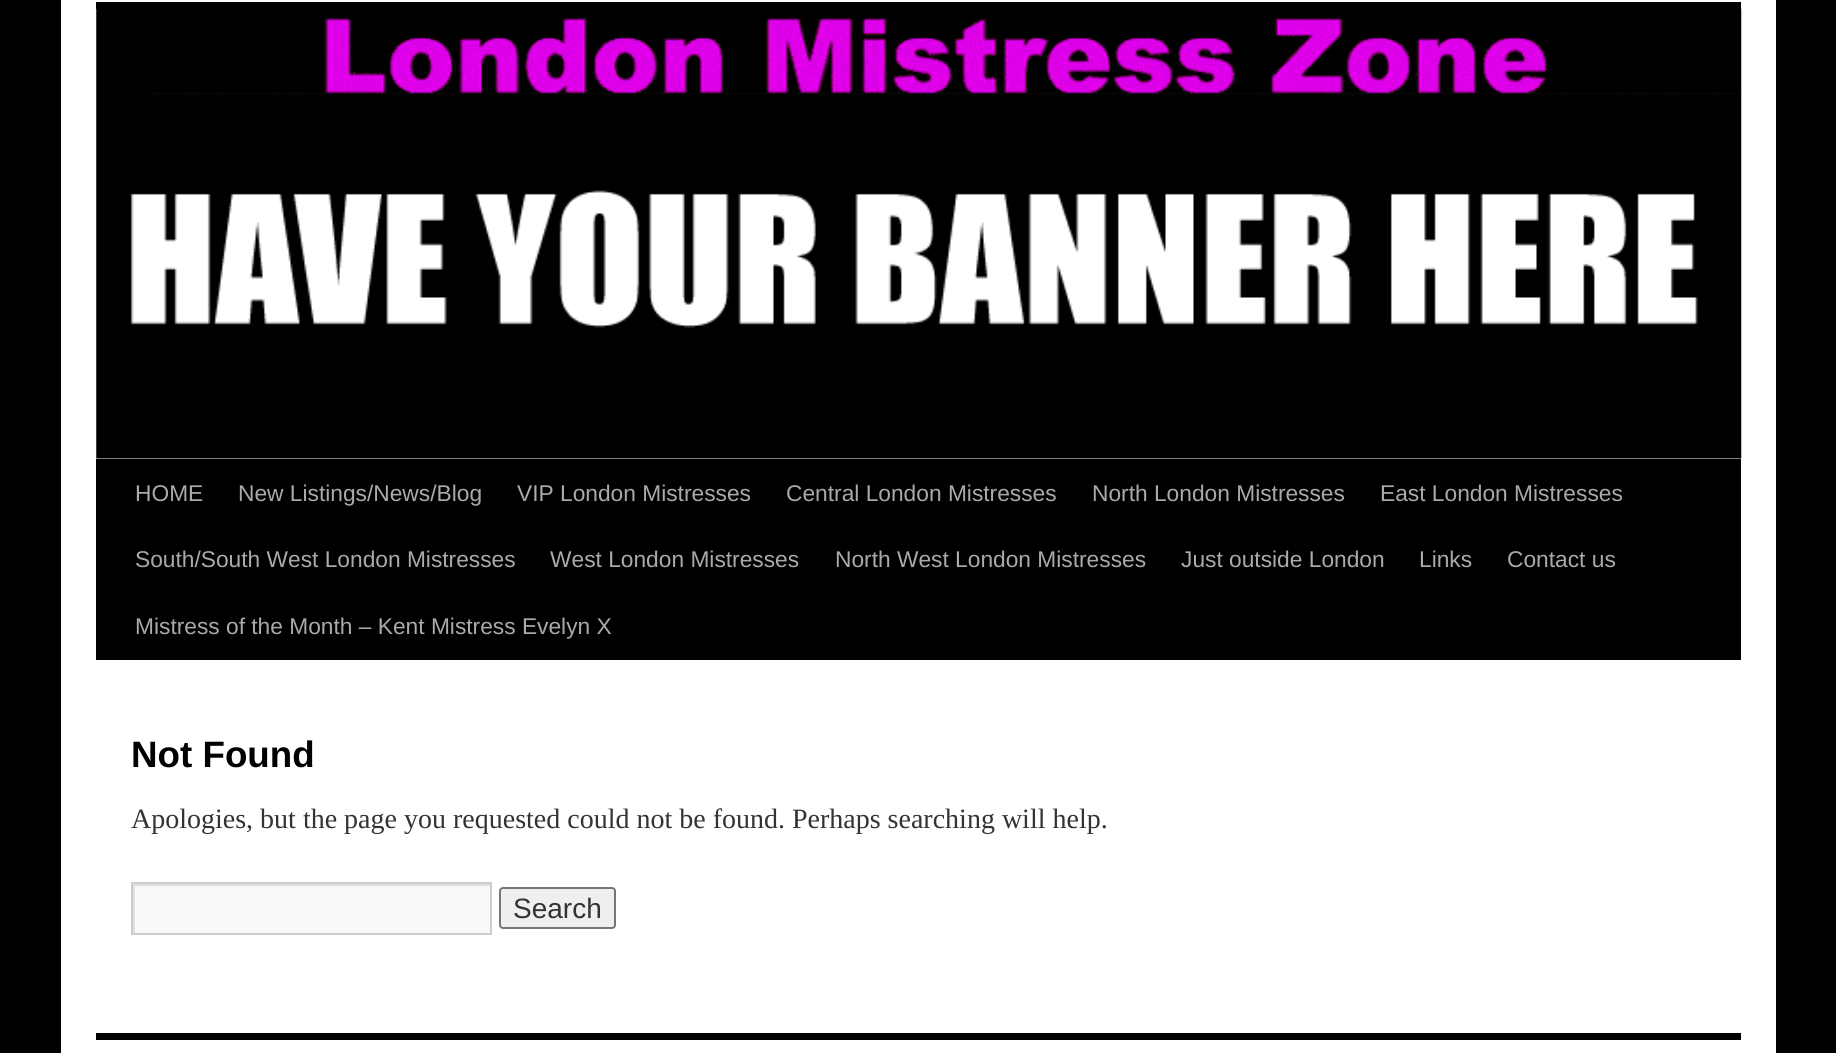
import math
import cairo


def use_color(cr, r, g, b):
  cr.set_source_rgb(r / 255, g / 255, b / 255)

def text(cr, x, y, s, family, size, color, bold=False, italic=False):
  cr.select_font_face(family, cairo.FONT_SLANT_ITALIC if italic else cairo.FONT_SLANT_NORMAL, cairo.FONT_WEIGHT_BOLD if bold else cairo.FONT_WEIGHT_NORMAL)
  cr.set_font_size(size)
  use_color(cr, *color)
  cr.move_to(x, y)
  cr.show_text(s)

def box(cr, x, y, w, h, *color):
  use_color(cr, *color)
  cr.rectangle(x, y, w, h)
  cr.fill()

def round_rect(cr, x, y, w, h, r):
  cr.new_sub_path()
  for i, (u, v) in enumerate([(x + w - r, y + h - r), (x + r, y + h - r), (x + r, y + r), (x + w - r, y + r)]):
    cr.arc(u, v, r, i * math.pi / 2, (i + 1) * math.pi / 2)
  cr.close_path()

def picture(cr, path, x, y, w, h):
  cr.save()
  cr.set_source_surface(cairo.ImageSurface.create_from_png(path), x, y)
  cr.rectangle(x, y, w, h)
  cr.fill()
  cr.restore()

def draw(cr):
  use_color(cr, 0, 0, 0)
  cr.paint()
  box(cr, 61, 0, 1715, 1053, 255, 255, 255)
  box(cr, 96, 2, 1645, 7, 0, 0, 0)
  box(cr, 96, 459, 1645, 201, 0, 0, 0)
  picture(cr, "img_01.png", 96, 8, 1646, 451)
  box(cr, 135, 886, 355, 47, 249, 249, 249)
  cr.save()
  cr.rectangle(133, 884, 357, 49)
  cr.clip()
  use_color(cr, 224, 224, 224)
  cr.set_fill_rule(cairo.FILL_RULE_EVEN_ODD)
  cr.new_path()
  cr.move_to(-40, 710)
  cr.line_to(663, 710)
  cr.line_to(663, 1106)
  cr.line_to(-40, 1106)
  cr.close_path()
  cr.move_to(135, 886)
  cr.line_to(492, 886)
  cr.line_to(492, 934)
  cr.line_to(135, 934)
  cr.close_path()
  cr.fill()
  cr.restore()
  cr.rectangle(132, 883, 359, 51)
  use_color(cr, 204, 204, 204)
  cr.stroke()
  use_color(cr, 239, 239, 239)
  round_rect(cr, 500, 888, 115, 40, 3)
  cr.fill_preserve()
  use_color(cr, 118, 118, 118)
  cr.stroke()
  box(cr, 96, 1033, 1645, 7, 0, 0, 0)
  text(cr, 135, 501, "HOME", "Liberation Sans", 22.75, (170, 170, 170))
  text(cr, 238, 501, "New Listings/News/Blog", "Liberation Sans", 22.75, (170, 170, 170))
  text(cr, 517, 501, "VIP London Mistresses", "Liberation Sans", 22.75, (170, 170, 170))
  text(cr, 786, 501, "Central London Mistresses", "Liberation Sans", 22.75, (170, 170, 170))
  text(cr, 1092, 501, "North London Mistresses", "Liberation Sans", 22.75, (170, 170, 170))
  text(cr, 1380, 501, "East London Mistresses", "Liberation Sans", 22.75, (170, 170, 170))
  text(cr, 135, 567, "South/South West London Mistresses", "Liberation Sans", 22.75, (170, 170, 170))
  text(cr, 550, 567, "West London Mistresses", "Liberation Sans", 22.75, (170, 170, 170))
  text(cr, 835, 567, "North West London Mistresses", "Liberation Sans", 22.75, (170, 170, 170))
  text(cr, 1181, 567, "Just outside London", "Liberation Sans", 22.75, (170, 170, 170))
  text(cr, 1419, 567, "Links", "Liberation Sans", 22.75, (170, 170, 170))
  text(cr, 1507, 567, "Contact us", "Liberation Sans", 22.75, (170, 170, 170))
  text(cr, 135, 634, "Mistress of the Month – Kent Mistress Evelyn X", "Liberation Sans", 22.75, (170, 170, 170))
  text(cr, 131, 767, "Not Found", "Liberation Sans", 36.75, (0, 0, 0), bold=True)
  text(cr, 131, 828, "Apologies, but the page you requested could not be found. Perhaps searching will help.", "Liberation Serif", 28, (51, 51, 51))
  text(cr, 513, 918, "Search", "Liberation Sans", 28, (51, 51, 51))


surface = cairo.ImageSurface(cairo.FORMAT_RGB24, 1836, 1053)
cr = cairo.Context(surface)
options = cairo.FontOptions()
options.set_hint_metrics(cairo.HINT_METRICS_OFF)
options.set_hint_style(cairo.HINT_STYLE_NONE)
cr.set_font_options(options)
cr.set_miter_limit(4)
draw(cr)
surface.write_to_png("out.png")
